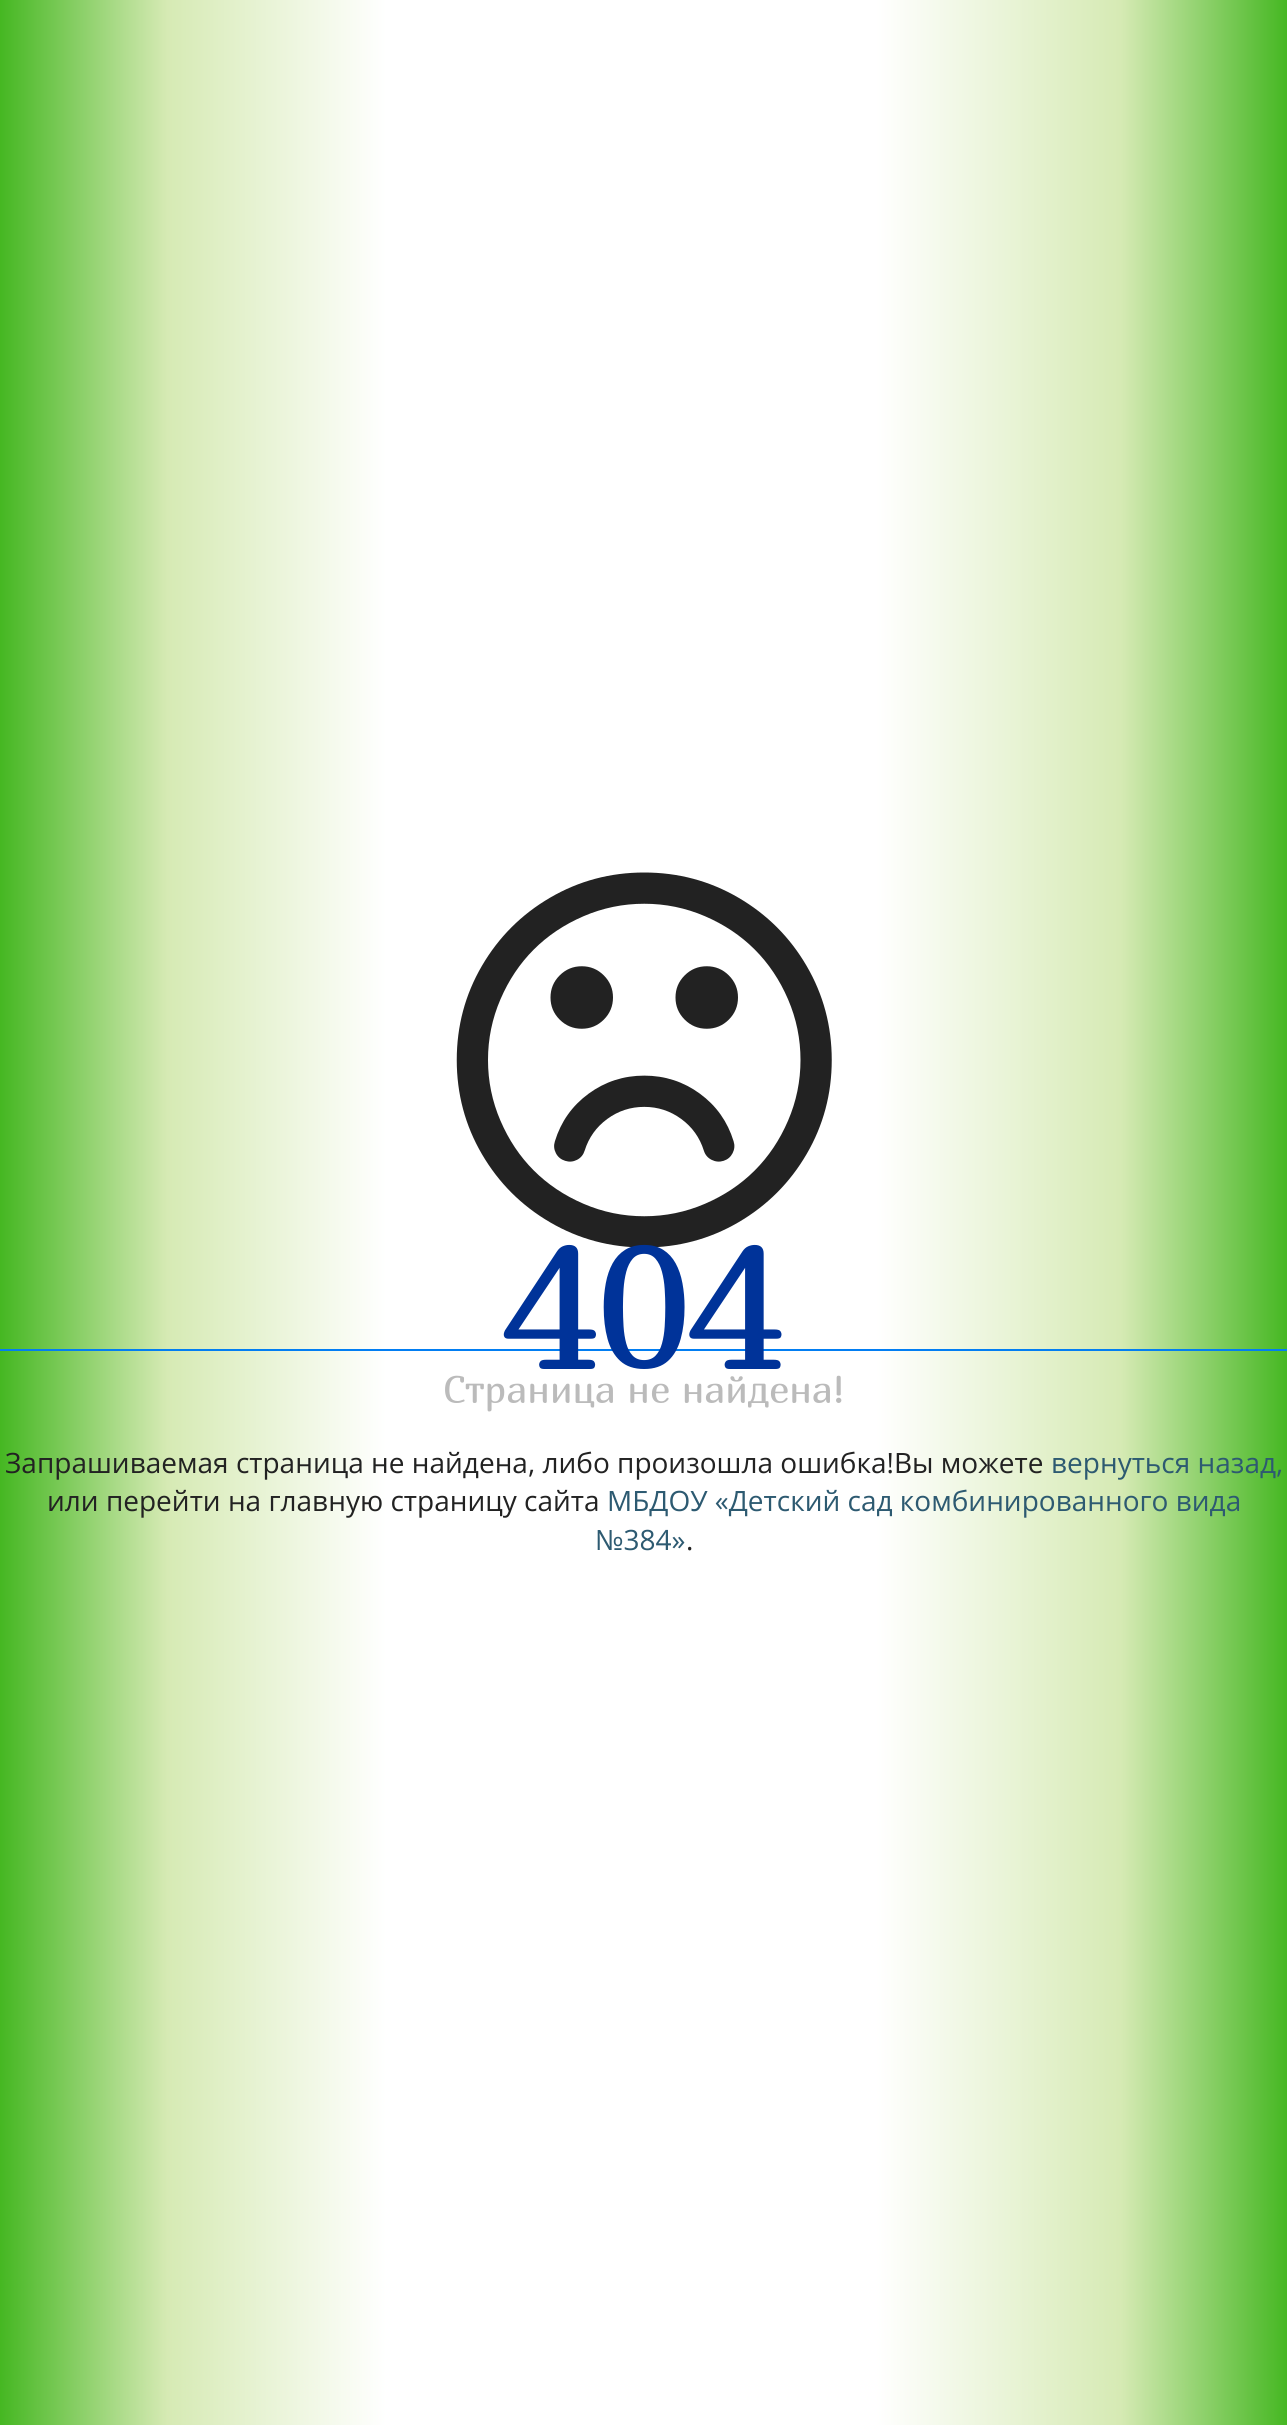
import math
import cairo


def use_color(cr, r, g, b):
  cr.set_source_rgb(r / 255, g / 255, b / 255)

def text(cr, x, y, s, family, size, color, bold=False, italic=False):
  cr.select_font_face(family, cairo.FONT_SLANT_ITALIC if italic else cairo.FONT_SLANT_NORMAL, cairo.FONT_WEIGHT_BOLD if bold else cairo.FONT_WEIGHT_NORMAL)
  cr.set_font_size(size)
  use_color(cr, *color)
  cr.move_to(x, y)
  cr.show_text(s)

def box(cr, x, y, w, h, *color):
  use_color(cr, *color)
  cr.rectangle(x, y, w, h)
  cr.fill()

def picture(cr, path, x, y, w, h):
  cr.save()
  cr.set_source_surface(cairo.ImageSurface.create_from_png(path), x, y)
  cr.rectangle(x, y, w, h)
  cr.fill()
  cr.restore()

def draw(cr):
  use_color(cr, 255, 255, 255)
  cr.paint()
  gradient = cairo.LinearGradient(0, 1213, 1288, 1213)
  gradient.add_color_stop_rgba(0, 0.271, 0.718, 0.133, 1)
  gradient.add_color_stop_rgba(0.13, 0.839, 0.918, 0.706, 1)
  gradient.add_color_stop_rgba(0.3, 1, 1, 1, 1)
  gradient.add_color_stop_rgba(0.68, 1, 1, 1, 1)
  gradient.add_color_stop_rgba(0.87, 0.839, 0.918, 0.706, 1)
  gradient.add_color_stop_rgba(1, 0.271, 0.718, 0.133, 1)
  cr.set_source(gradient)
  cr.rectangle(0, 0, 1287, 2425)
  cr.fill()
  picture(cr, "img_01.png", 456, 872, 376, 376)
  box(cr, 0, 1349, 1287, 2, 2, 126, 242)
  text(cr, 505, 1369, "404", "Marmelad", 175, (0, 51, 153))
  text(cr, 443, 1403, "Страница не найдена!", "Marmelad", 38.5, (187, 187, 187))
  text(cr, 5, 1473, "Запрашиваемая страница не найдена, либо произошла ошибка!Вы можете", "Open Sans", 28, (34, 34, 34))
  text(cr, 1051, 1473, "вернуться назад,", "Open Sans", 28, (45, 90, 113))
  text(cr, 47, 1511, "или перейти на главную страницу сайта", "Open Sans", 28, (34, 34, 34))
  text(cr, 607, 1511, "МБДОУ «Детский сад комбинированного вида", "Open Sans", 28, (45, 90, 113))
  text(cr, 595, 1550, "№384»", "Open Sans", 28, (45, 90, 113))
  text(cr, 686, 1550, ".", "Open Sans", 28, (34, 34, 34))


surface = cairo.ImageSurface(cairo.FORMAT_RGB24, 1287, 2425)
cr = cairo.Context(surface)
options = cairo.FontOptions()
options.set_hint_metrics(cairo.HINT_METRICS_OFF)
options.set_hint_style(cairo.HINT_STYLE_NONE)
cr.set_font_options(options)
cr.set_miter_limit(4)
draw(cr)
surface.write_to_png("out.png")
